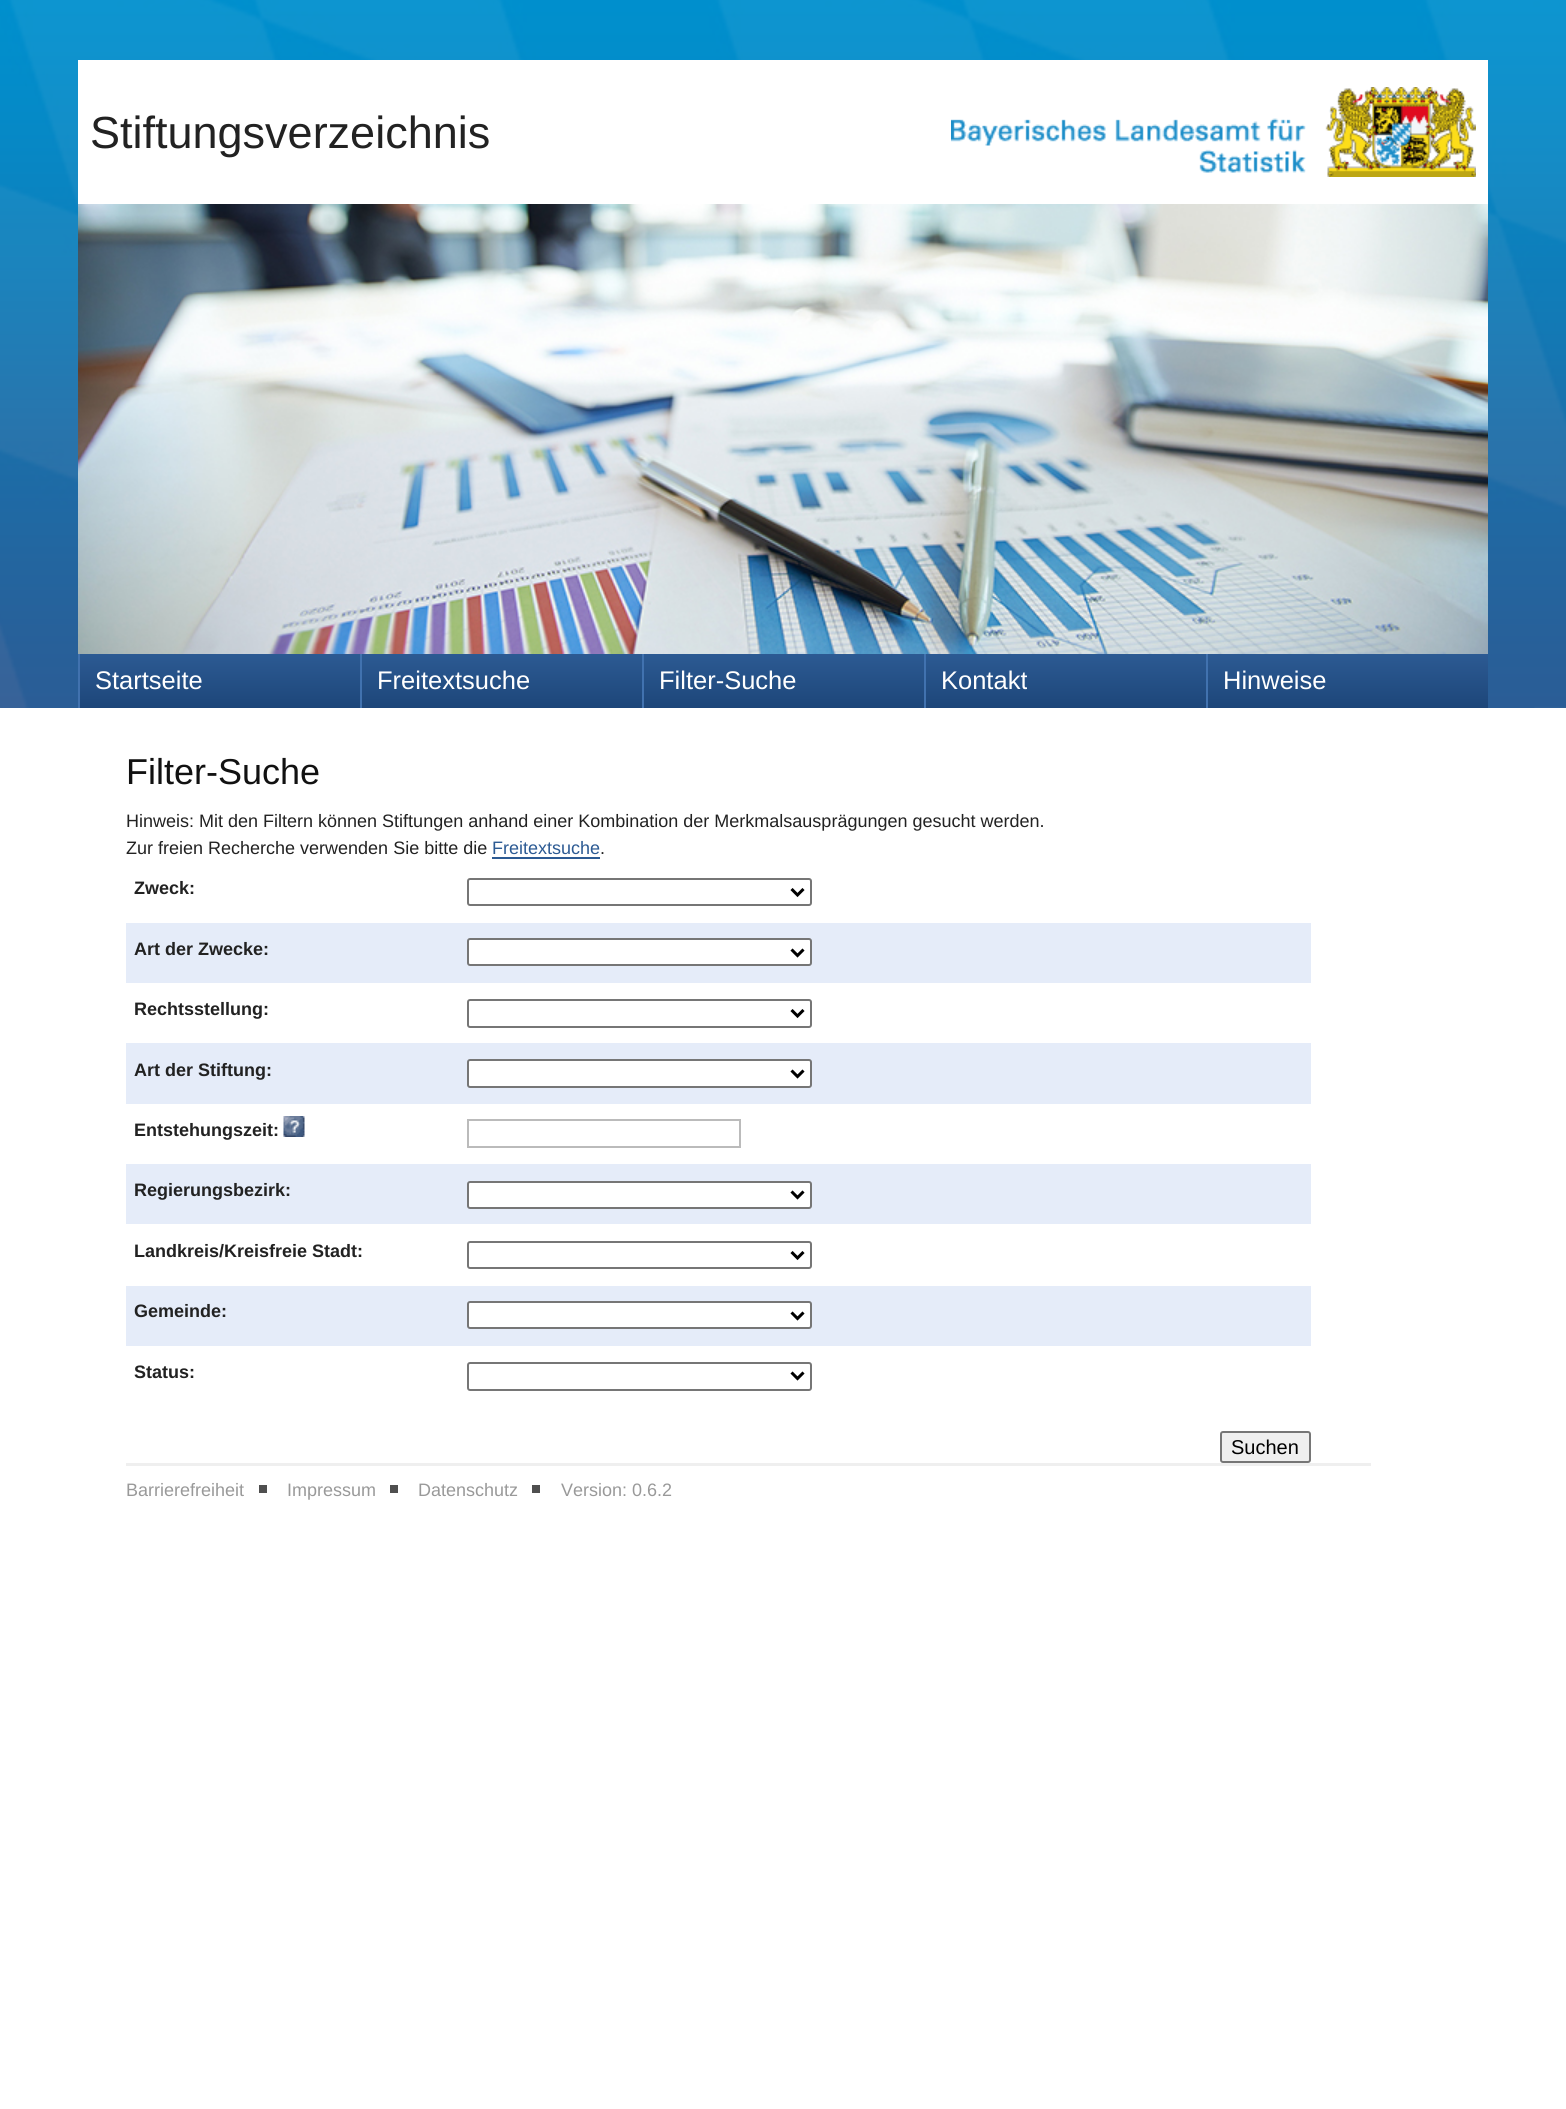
import math
import cairo


def use_color(cr, r, g, b):
  cr.set_source_rgb(r / 255, g / 255, b / 255)

def text(cr, x, y, s, family, size, color, bold=False, italic=False):
  cr.select_font_face(family, cairo.FONT_SLANT_ITALIC if italic else cairo.FONT_SLANT_NORMAL, cairo.FONT_WEIGHT_BOLD if bold else cairo.FONT_WEIGHT_NORMAL)
  cr.set_font_size(size)
  use_color(cr, *color)
  cr.move_to(x, y)
  cr.show_text(s)

def box(cr, x, y, w, h, *color):
  use_color(cr, *color)
  cr.rectangle(x, y, w, h)
  cr.fill()

def round_rect(cr, x, y, w, h, r):
  cr.new_sub_path()
  for i, (u, v) in enumerate([(x + w - r, y + h - r), (x + r, y + h - r), (x + r, y + r), (x + w - r, y + r)]):
    cr.arc(u, v, r, i * math.pi / 2, (i + 1) * math.pi / 2)
  cr.close_path()

def picture(cr, path, x, y, w, h):
  cr.save()
  cr.set_source_surface(cairo.ImageSurface.create_from_png(path), x, y)
  cr.rectangle(x, y, w, h)
  cr.fill()
  cr.restore()

def draw(cr):
  use_color(cr, 255, 255, 255)
  cr.paint()
  picture(cr, "img_01.png", 0, 0, 1566, 708)
  box(cr, 78, 60, 1410, 144, 255, 255, 255)
  picture(cr, "img_02.png", 951, 87, 525, 90)
  picture(cr, "img_03.png", 78, 204, 1410, 450)
  gradient = cairo.LinearGradient(228, 654, 228, 744)
  gradient.add_color_stop_rgba(0, 0.173, 0.353, 0.576, 1)
  gradient.add_color_stop_rgba(1, 0.075, 0.224, 0.408, 1)
  cr.set_source(gradient)
  cr.rectangle(80, 654, 280, 54)
  cr.fill()
  box(cr, 78, 654, 2, 54, 65, 114, 175)
  gradient = cairo.LinearGradient(510, 654, 510, 744)
  gradient.add_color_stop_rgba(0, 0.173, 0.353, 0.576, 1)
  gradient.add_color_stop_rgba(1, 0.075, 0.224, 0.408, 1)
  cr.set_source(gradient)
  cr.rectangle(362, 654, 280, 54)
  cr.fill()
  box(cr, 360, 654, 2, 54, 65, 114, 175)
  gradient = cairo.LinearGradient(792, 654, 792, 744)
  gradient.add_color_stop_rgba(0, 0.173, 0.353, 0.576, 1)
  gradient.add_color_stop_rgba(1, 0.075, 0.224, 0.408, 1)
  cr.set_source(gradient)
  cr.rectangle(644, 654, 280, 54)
  cr.fill()
  box(cr, 642, 654, 2, 54, 65, 114, 175)
  gradient = cairo.LinearGradient(1074, 654, 1074, 744)
  gradient.add_color_stop_rgba(0, 0.173, 0.353, 0.576, 1)
  gradient.add_color_stop_rgba(1, 0.075, 0.224, 0.408, 1)
  cr.set_source(gradient)
  cr.rectangle(926, 654, 280, 54)
  cr.fill()
  box(cr, 924, 654, 2, 54, 65, 114, 175)
  gradient = cairo.LinearGradient(1356, 654, 1356, 744)
  gradient.add_color_stop_rgba(0, 0.173, 0.353, 0.576, 1)
  gradient.add_color_stop_rgba(1, 0.075, 0.224, 0.408, 1)
  cr.set_source(gradient)
  cr.rectangle(1208, 654, 280, 54)
  cr.fill()
  box(cr, 1206, 654, 2, 54, 65, 114, 175)
  box(cr, 492, 857, 108, 2, 44, 90, 147)
  round_rect(cr, 468, 879, 343, 26, 2)
  use_color(cr, 118, 118, 118)
  cr.stroke()
  cr.new_path()
  cr.move_to(791.5, 889)
  cr.line_to(797.5, 895)
  cr.line_to(803.5, 889)
  use_color(cr, 0, 0, 0)
  cr.set_line_width(3)
  cr.stroke()
  box(cr, 126, 923, 1185, 60, 229, 236, 249)
  use_color(cr, 255, 255, 255)
  round_rect(cr, 468, 939, 343, 26, 2)
  cr.fill_preserve()
  use_color(cr, 118, 118, 118)
  cr.set_line_width(2)
  cr.stroke()
  cr.new_path()
  cr.move_to(791.5, 949.5)
  cr.line_to(797.5, 955.5)
  cr.line_to(803.5, 949.5)
  use_color(cr, 0, 0, 0)
  cr.set_line_width(3)
  cr.stroke()
  round_rect(cr, 468, 1000, 343, 27, 2)
  use_color(cr, 118, 118, 118)
  cr.set_line_width(2)
  cr.stroke()
  cr.new_path()
  cr.move_to(791.5, 1010)
  cr.line_to(797.5, 1016)
  cr.line_to(803.5, 1010)
  use_color(cr, 0, 0, 0)
  cr.set_line_width(3)
  cr.stroke()
  box(cr, 126, 1043, 1185, 61, 229, 236, 249)
  use_color(cr, 255, 255, 255)
  round_rect(cr, 468, 1060, 343, 27, 2)
  cr.fill_preserve()
  use_color(cr, 118, 118, 118)
  cr.set_line_width(2)
  cr.stroke()
  cr.new_path()
  cr.move_to(791.5, 1070.5)
  cr.line_to(797.5, 1076.5)
  cr.line_to(803.5, 1070.5)
  use_color(cr, 0, 0, 0)
  cr.set_line_width(3)
  cr.stroke()
  picture(cr, "img_04.png", 283, 1116, 22, 21)
  cr.rectangle(468, 1120, 272, 27)
  use_color(cr, 187, 187, 187)
  cr.set_line_width(2)
  cr.stroke()
  box(cr, 126, 1164, 1185, 60, 229, 236, 249)
  use_color(cr, 255, 255, 255)
  round_rect(cr, 468, 1182, 343, 26, 2)
  cr.fill_preserve()
  use_color(cr, 118, 118, 118)
  cr.stroke()
  cr.new_path()
  cr.move_to(791.5, 1191.5)
  cr.line_to(797.5, 1197.5)
  cr.line_to(803.5, 1191.5)
  use_color(cr, 0, 0, 0)
  cr.set_line_width(3)
  cr.stroke()
  round_rect(cr, 468, 1242, 343, 26, 2)
  use_color(cr, 118, 118, 118)
  cr.set_line_width(2)
  cr.stroke()
  cr.new_path()
  cr.move_to(791.5, 1252)
  cr.line_to(797.5, 1258)
  cr.line_to(803.5, 1252)
  use_color(cr, 0, 0, 0)
  cr.set_line_width(3)
  cr.stroke()
  box(cr, 126, 1286, 1185, 60, 229, 236, 249)
  use_color(cr, 255, 255, 255)
  round_rect(cr, 468, 1302, 343, 26, 2)
  cr.fill_preserve()
  use_color(cr, 118, 118, 118)
  cr.set_line_width(2)
  cr.stroke()
  cr.new_path()
  cr.move_to(791.5, 1312.5)
  cr.line_to(797.5, 1318.5)
  cr.line_to(803.5, 1312.5)
  use_color(cr, 0, 0, 0)
  cr.set_line_width(3)
  cr.stroke()
  round_rect(cr, 468, 1363, 343, 27, 2)
  use_color(cr, 118, 118, 118)
  cr.set_line_width(2)
  cr.stroke()
  cr.new_path()
  cr.move_to(791.5, 1372.5)
  cr.line_to(797.5, 1378.5)
  cr.line_to(803.5, 1372.5)
  use_color(cr, 0, 0, 0)
  cr.set_line_width(3)
  cr.stroke()
  use_color(cr, 239, 239, 239)
  round_rect(cr, 1221, 1432, 89, 30, 2)
  cr.fill_preserve()
  use_color(cr, 118, 118, 118)
  cr.set_line_width(2)
  cr.stroke()
  box(cr, 126, 1463, 1245, 3, 239, 239, 239)
  box(cr, 259, 1485, 8, 8, 79, 79, 79)
  box(cr, 390, 1485, 8, 8, 79, 79, 79)
  box(cr, 532, 1485, 8, 8, 79, 79, 79)
  text(cr, 90, 148, "Stiftungsverzeichnis", "Liberation Sans", 45, (34, 34, 34))
  text(cr, 95, 689, "Startseite", "Liberation Sans", 25.5, (255, 255, 255))
  text(cr, 377, 689, "Freitextsuche", "Liberation Sans", 25.5, (255, 255, 255))
  text(cr, 659, 689, "Filter-Suche", "Liberation Sans", 25.5, (255, 255, 255))
  text(cr, 941, 689, "Kontakt", "Liberation Sans", 25.5, (255, 255, 255))
  text(cr, 1223, 689, "Hinweise", "Liberation Sans", 25.5, (255, 255, 255))
  text(cr, 126, 784, "Filter-Suche", "Liberation Sans", 36, (17, 17, 17))
  text(cr, 126, 827, "Hinweis: Mit den Filtern können Stiftungen anhand einer Kombination der Merkmalsausprägungen gesucht werden.", "Liberation Sans", 18, (34, 34, 34))
  text(cr, 126, 854, "Zur freien Recherche verwenden Sie bitte die", "Liberation Sans", 18, (34, 34, 34))
  text(cr, 492, 854, "Freitextsuche", "Liberation Sans", 18, (44, 90, 147))
  text(cr, 600, 854, ".", "Liberation Sans", 18, (34, 34, 34))
  text(cr, 134, 894, "Zweck:", "Liberation Sans", 18, (34, 34, 34), bold=True)
  text(cr, 134, 955, "Art der Zwecke:", "Liberation Sans", 18, (34, 34, 34), bold=True)
  text(cr, 134, 1015, "Rechtsstellung:", "Liberation Sans", 18, (34, 34, 34), bold=True)
  text(cr, 134, 1076, "Art der Stiftung:", "Liberation Sans", 18, (34, 34, 34), bold=True)
  text(cr, 134, 1136, "Entstehungszeit:", "Liberation Sans", 18, (34, 34, 34), bold=True)
  text(cr, 134, 1196, "Regierungsbezirk:", "Liberation Sans", 18, (34, 34, 34), bold=True)
  text(cr, 134, 1257, "Landkreis/Kreisfreie Stadt:", "Liberation Sans", 18, (34, 34, 34), bold=True)
  text(cr, 134, 1317, "Gemeinde:", "Liberation Sans", 18, (34, 34, 34), bold=True)
  text(cr, 134, 1378, "Status:", "Liberation Sans", 18, (34, 34, 34), bold=True)
  text(cr, 1231, 1454, "Suchen", "Liberation Sans", 20, (0, 0, 0))
  text(cr, 126, 1496, "Barrierefreiheit", "Liberation Sans", 18, (153, 153, 153))
  text(cr, 287, 1496, "Impressum", "Liberation Sans", 18, (153, 153, 153))
  text(cr, 418, 1496, "Datenschutz", "Liberation Sans", 18, (153, 153, 153))
  text(cr, 561, 1496, "Version: 0.6.2", "Liberation Sans", 18, (153, 153, 153))


surface = cairo.ImageSurface(cairo.FORMAT_RGB24, 1566, 2109)
cr = cairo.Context(surface)
options = cairo.FontOptions()
options.set_hint_metrics(cairo.HINT_METRICS_OFF)
options.set_hint_style(cairo.HINT_STYLE_NONE)
cr.set_font_options(options)
cr.set_miter_limit(4)
draw(cr)
surface.write_to_png("out.png")
